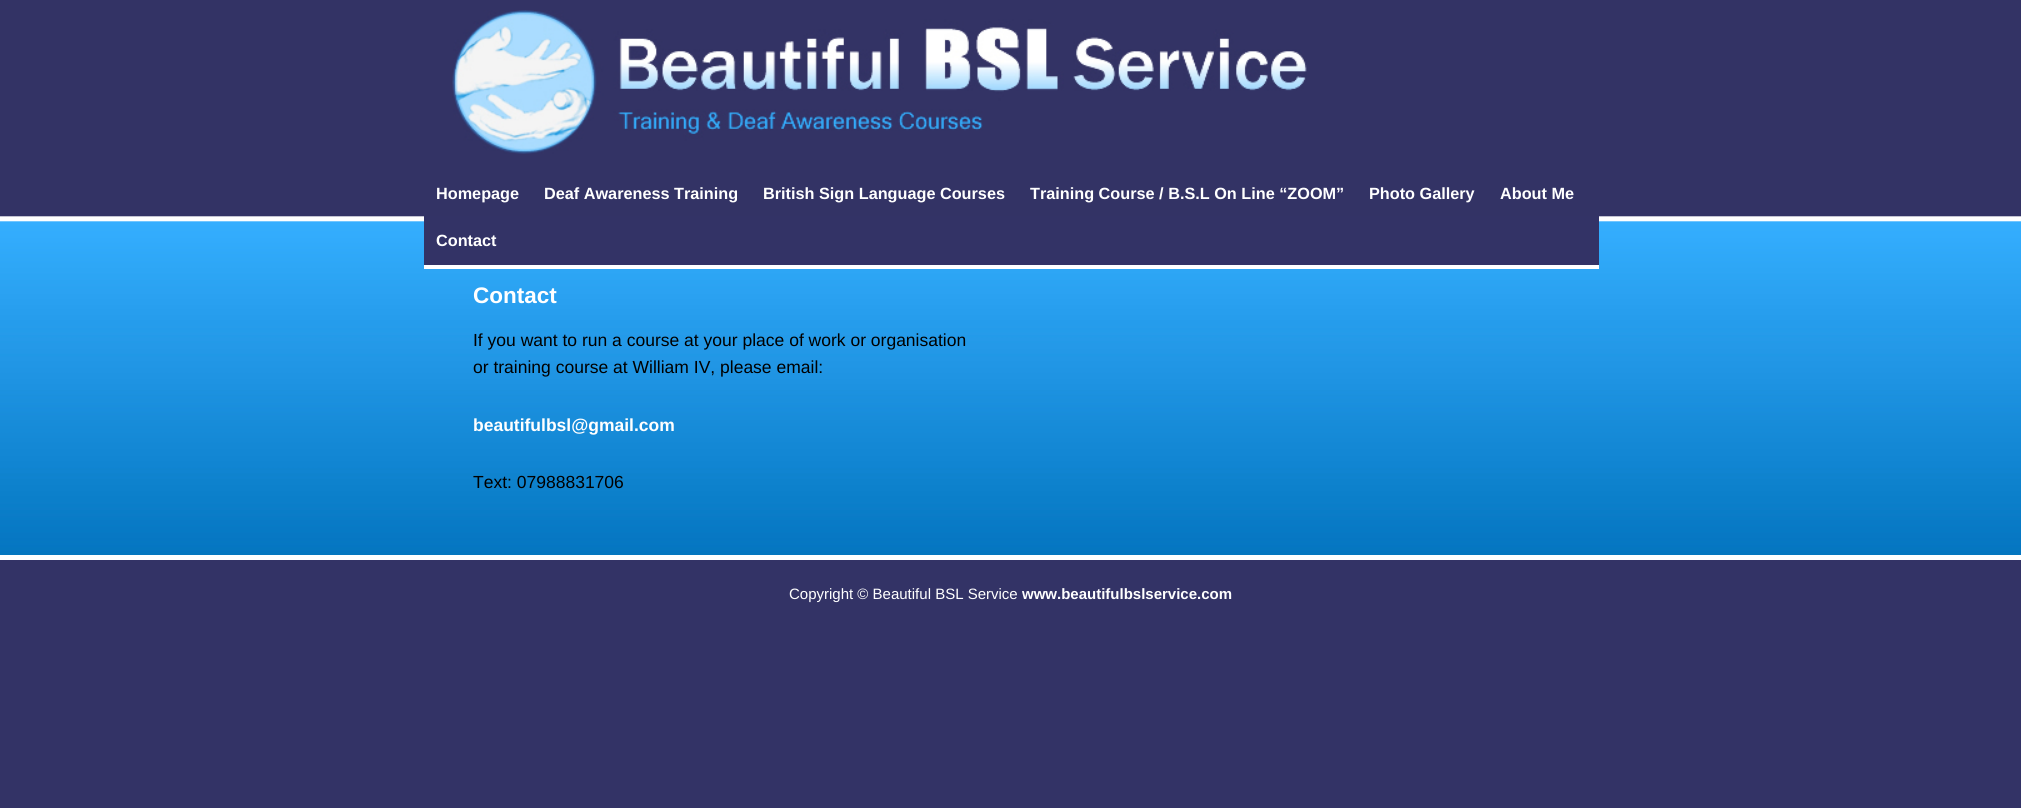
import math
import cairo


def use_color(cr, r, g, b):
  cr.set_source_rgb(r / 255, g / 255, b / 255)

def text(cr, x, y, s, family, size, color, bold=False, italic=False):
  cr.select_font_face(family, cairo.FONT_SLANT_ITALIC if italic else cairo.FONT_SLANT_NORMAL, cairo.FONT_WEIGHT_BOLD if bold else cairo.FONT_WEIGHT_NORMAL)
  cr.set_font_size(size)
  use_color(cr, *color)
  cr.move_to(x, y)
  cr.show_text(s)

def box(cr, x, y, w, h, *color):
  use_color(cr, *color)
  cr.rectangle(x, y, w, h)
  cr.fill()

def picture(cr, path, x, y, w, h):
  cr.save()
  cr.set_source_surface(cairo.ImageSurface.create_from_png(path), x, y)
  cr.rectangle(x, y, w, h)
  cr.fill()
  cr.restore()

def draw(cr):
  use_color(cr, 51, 51, 102)
  cr.paint()
  picture(cr, "img_01.png", 0, 0, 2021, 555)
  box(cr, 424, 216, 1175, 49, 51, 51, 102)
  box(cr, 424, 265, 1175, 4, 255, 255, 255)
  picture(cr, "img_02.png", 452, 10, 855, 144)
  box(cr, 0, 555, 2021, 5, 255, 255, 255)
  text(cr, 436, 199, "Homepage", "Liberation Sans", 16.25, (255, 255, 255), bold=True)
  text(cr, 544, 199, "Deaf Awareness Training", "Liberation Sans", 16.25, (255, 255, 255), bold=True)
  text(cr, 763, 199, "British Sign Language Courses", "Liberation Sans", 16.25, (255, 255, 255), bold=True)
  text(cr, 1030, 199, "Training Course / B.S.L On Line “ZOOM”", "Liberation Sans", 16.25, (255, 255, 255), bold=True)
  text(cr, 1369, 199, "Photo Gallery", "Liberation Sans", 16.25, (255, 255, 255), bold=True)
  text(cr, 1500, 199, "About Me", "Liberation Sans", 16.25, (255, 255, 255), bold=True)
  text(cr, 436, 246, "Contact", "Liberation Sans", 16.25, (255, 255, 255), bold=True)
  text(cr, 473, 303, "Contact", "Liberation Sans", 22.5, (255, 255, 255), bold=True)
  text(cr, 473, 346, "If you want to run a course at your place of work or organisation", "Liberation Sans", 17.5, (0, 0, 0))
  text(cr, 473, 373, "or training course at William IV, please email:", "Liberation Sans", 17.5, (0, 0, 0))
  text(cr, 473, 431, "beautifulbsl@gmail.com", "Liberation Sans", 17.5, (255, 255, 255), bold=True)
  text(cr, 473, 488, "Text: 07988831706", "Liberation Sans", 17.5, (0, 0, 0))
  text(cr, 789, 599, "Copyright © Beautiful BSL Service", "Liberation Sans", 15, (255, 255, 255))
  text(cr, 1022, 599, "www.beautifulbslservice.com", "Liberation Sans", 15, (255, 255, 255), bold=True)


surface = cairo.ImageSurface(cairo.FORMAT_RGB24, 2021, 808)
cr = cairo.Context(surface)
options = cairo.FontOptions()
options.set_hint_metrics(cairo.HINT_METRICS_OFF)
options.set_hint_style(cairo.HINT_STYLE_NONE)
cr.set_font_options(options)
cr.set_miter_limit(4)
draw(cr)
surface.write_to_png("out.png")
